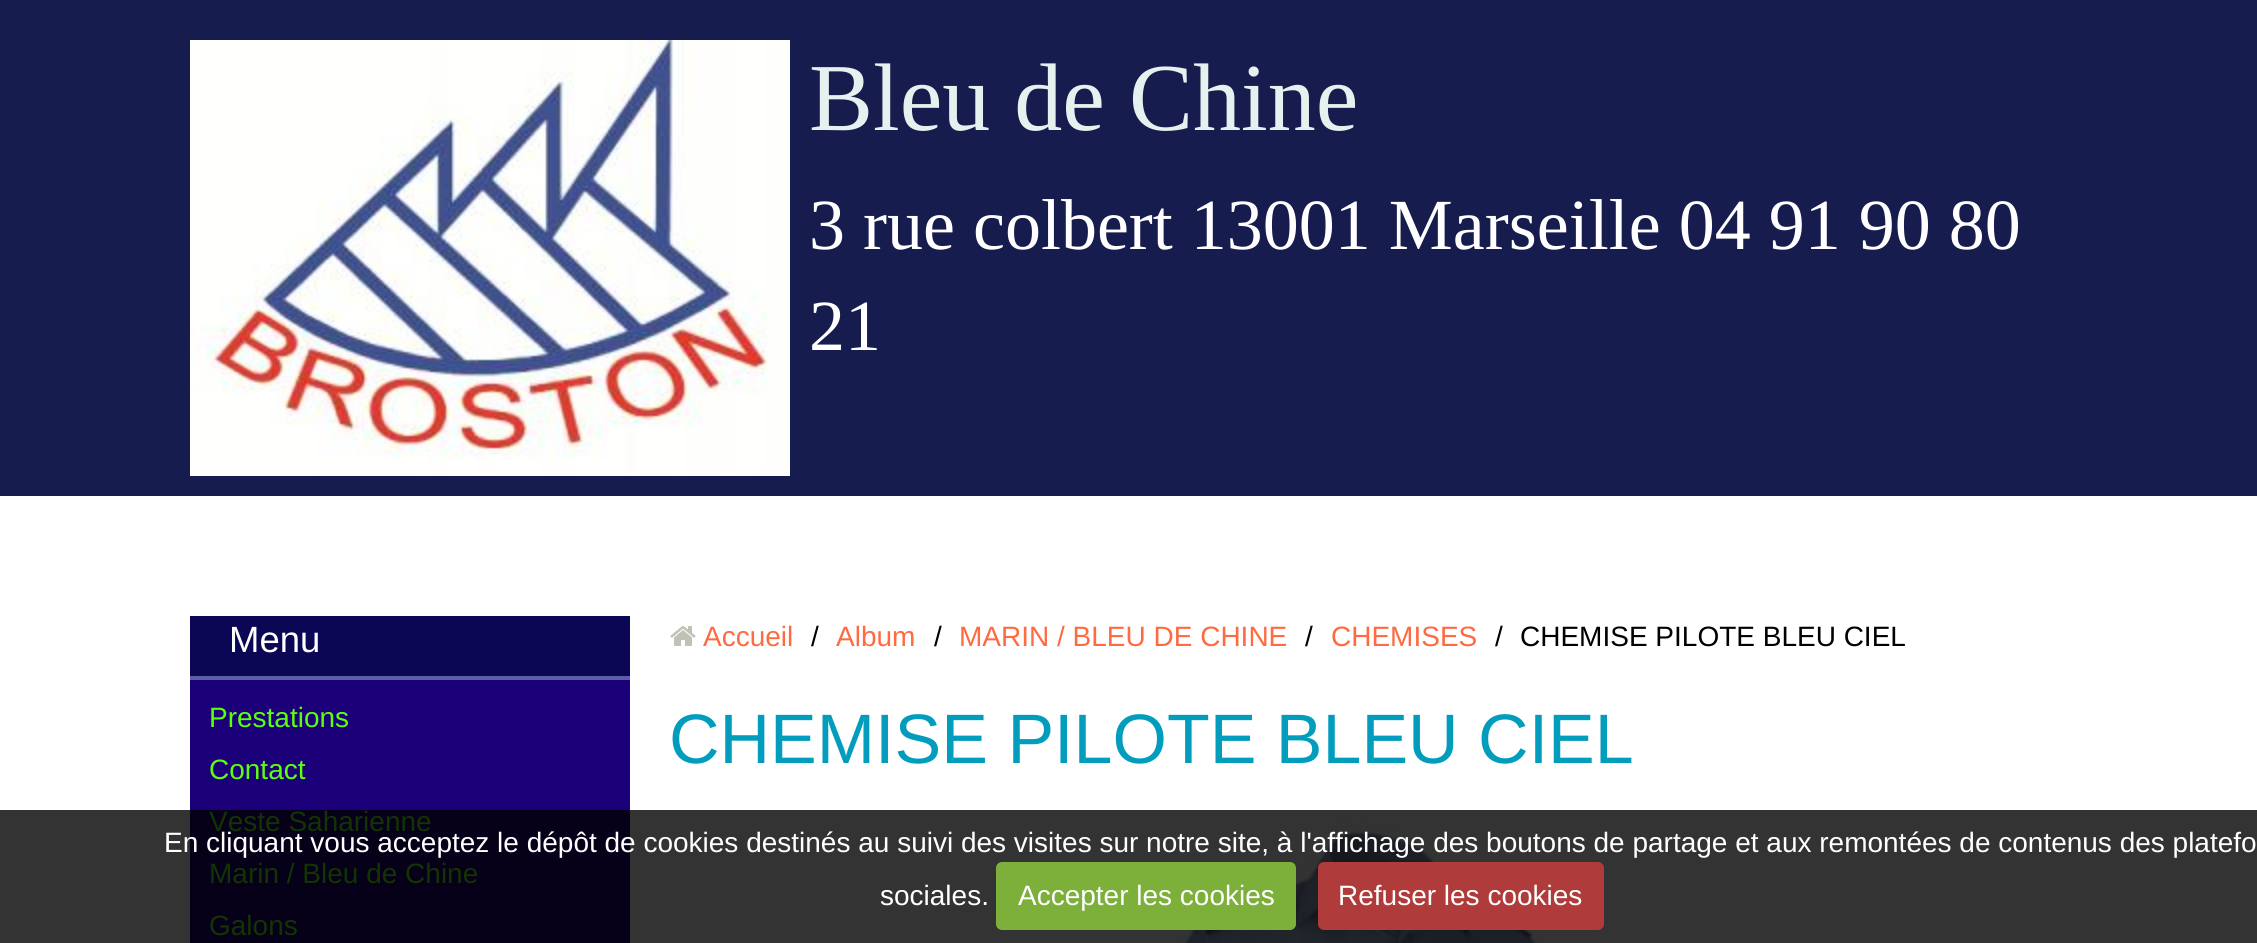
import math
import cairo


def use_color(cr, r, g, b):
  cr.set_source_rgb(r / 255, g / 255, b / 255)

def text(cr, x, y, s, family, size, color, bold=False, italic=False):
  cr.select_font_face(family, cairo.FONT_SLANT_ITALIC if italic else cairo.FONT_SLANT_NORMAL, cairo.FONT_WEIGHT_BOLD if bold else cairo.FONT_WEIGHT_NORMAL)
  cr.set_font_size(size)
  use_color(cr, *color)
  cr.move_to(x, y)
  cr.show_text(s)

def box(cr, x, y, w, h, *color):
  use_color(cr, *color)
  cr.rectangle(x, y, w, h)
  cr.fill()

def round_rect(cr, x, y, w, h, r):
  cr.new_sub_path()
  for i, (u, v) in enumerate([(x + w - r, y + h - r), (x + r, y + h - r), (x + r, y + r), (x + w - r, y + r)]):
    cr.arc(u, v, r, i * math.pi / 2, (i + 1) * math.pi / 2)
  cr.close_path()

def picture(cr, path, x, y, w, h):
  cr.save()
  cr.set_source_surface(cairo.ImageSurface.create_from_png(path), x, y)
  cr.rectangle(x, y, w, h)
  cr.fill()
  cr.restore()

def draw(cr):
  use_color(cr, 255, 255, 255)
  cr.paint()
  box(cr, 0, 810, 2257, 133, 51, 51, 51)
  box(cr, 0, 0, 2257, 496, 23, 28, 78)
  picture(cr, "img_01.png", 190, 40, 600, 436)
  box(cr, 190, 680, 440, 130, 28, 0, 122)
  box(cr, 190, 810, 440, 133, 6, 0, 24)
  box(cr, 190, 616, 440, 60, 12, 7, 84)
  box(cr, 190, 676, 440, 4, 91, 94, 167)
  picture(cr, "img_02.png", 670, 626, 26, 20)
  picture(cr, "img_03.png", 1178, 822, 367, 121)
  use_color(cr, 125, 175, 59)
  round_rect(cr, 996, 862, 300, 68, 6)
  cr.fill()
  use_color(cr, 175, 59, 59)
  round_rect(cr, 1318, 862, 286, 68, 6)
  cr.fill()
  text(cr, 809, 130, "Bleu de Chine", "Liberation Serif", 96, (229, 241, 238))
  text(cr, 809, 249, "3 rue colbert 13001 Marseille 04 91 90 80", "Liberation Serif", 72, (255, 255, 255))
  text(cr, 809, 350, "21", "Liberation Serif", 72, (255, 255, 255))
  text(cr, 229, 652, "Menu", "Liberation Sans", 36.5, (255, 255, 255))
  text(cr, 209, 727, "Prestations", "Liberation Sans", 28, (92, 255, 10))
  text(cr, 209, 779, "Contact", "Liberation Sans", 28, (92, 255, 10))
  text(cr, 209, 831, "Veste Saharienne", "Liberation Sans", 28, (18, 51, 2))
  text(cr, 209, 883, "Marin / Bleu de Chine", "Liberation Sans", 28, (18, 51, 2))
  text(cr, 209, 935, "Galons", "Liberation Sans", 28, (18, 51, 2))
  text(cr, 703, 646, "Accueil", "Liberation Sans", 28, (255, 106, 65))
  text(cr, 811, 646, "/", "Liberation Sans", 28, (0, 0, 0))
  text(cr, 836, 646, "Album", "Liberation Sans", 28, (255, 106, 65))
  text(cr, 934, 646, "/", "Liberation Sans", 28, (0, 0, 0))
  text(cr, 959, 646, "MARIN / BLEU DE CHINE", "Liberation Sans", 28, (255, 106, 65))
  text(cr, 1305, 646, "/", "Liberation Sans", 28, (0, 0, 0))
  text(cr, 1331, 646, "CHEMISES", "Liberation Sans", 28, (255, 106, 65))
  text(cr, 1495, 646, "/", "Liberation Sans", 28, (0, 0, 0))
  text(cr, 1520, 646, "CHEMISE PILOTE BLEU CIEL", "Liberation Sans", 28, (0, 0, 0))
  text(cr, 669, 763, "CHEMISE PILOTE BLEU CIEL", "Liberation Sans", 70, (2, 157, 188))
  text(cr, 164, 852, "En cliquant vous acceptez le dépôt de cookies destinés au suivi des visites sur notre site, à l'affichage des boutons de partage et aux remontées de contenus des platefo", "Liberation Sans", 28, (255, 255, 255))
  text(cr, 880, 905, "sociales.", "Liberation Sans", 28, (255, 255, 255))
  text(cr, 1018, 905, "Accepter les cookies", "Liberation Sans", 28, (255, 255, 255))
  text(cr, 1338, 905, "Refuser les cookies", "Liberation Sans", 28, (255, 255, 255))


surface = cairo.ImageSurface(cairo.FORMAT_RGB24, 2257, 943)
cr = cairo.Context(surface)
options = cairo.FontOptions()
options.set_hint_metrics(cairo.HINT_METRICS_OFF)
options.set_hint_style(cairo.HINT_STYLE_NONE)
cr.set_font_options(options)
cr.set_miter_limit(4)
draw(cr)
surface.write_to_png("out.png")
